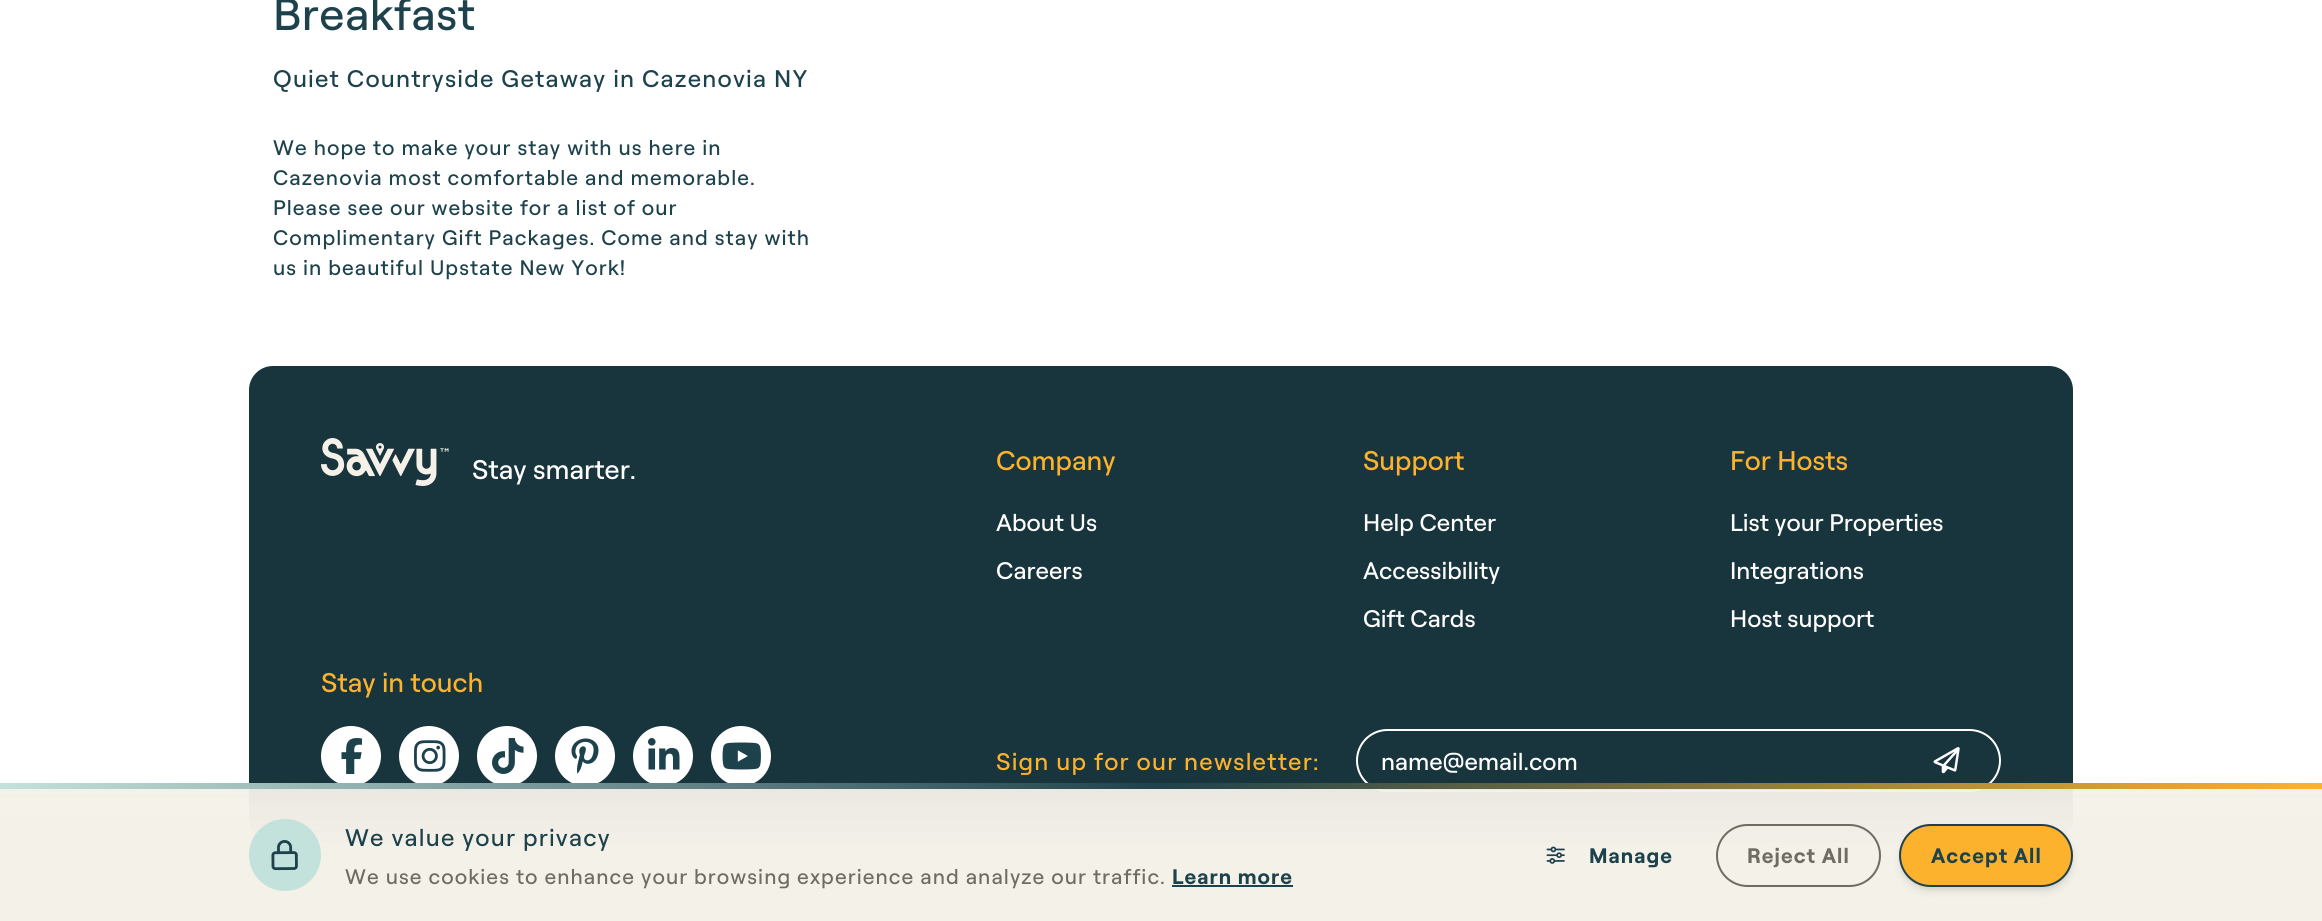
import math
import cairo


def use_color(cr, r, g, b):
  cr.set_source_rgb(r / 255, g / 255, b / 255)

def text(cr, x, y, s, family, size, color, bold=False, italic=False):
  cr.select_font_face(family, cairo.FONT_SLANT_ITALIC if italic else cairo.FONT_SLANT_NORMAL, cairo.FONT_WEIGHT_BOLD if bold else cairo.FONT_WEIGHT_NORMAL)
  cr.set_font_size(size)
  use_color(cr, *color)
  cr.move_to(x, y)
  cr.show_text(s)

def spaced_text(cr, x, y, s, letter, word):
  cr.move_to(x, y)
  for ch in s:
    cr.show_text(ch)
    cr.rel_move_to(letter + word * (ch == ' '), 0)

def box(cr, x, y, w, h, *color):
  use_color(cr, *color)
  cr.rectangle(x, y, w, h)
  cr.fill()

def round_rect(cr, x, y, w, h, r):
  cr.new_sub_path()
  for i, (u, v) in enumerate([(x + w - r, y + h - r), (x + r, y + h - r), (x + r, y + r), (x + w - r, y + r)]):
    cr.arc(u, v, r, i * math.pi / 2, (i + 1) * math.pi / 2)
  cr.close_path()

def shadow(cr, x, y, w, h, r, blur, alpha):
  cr.push_group_with_content(cairo.CONTENT_ALPHA)
  cr.set_operator(cairo.OPERATOR_SOURCE)
  for i in range(15, -16, -2):
    e = blur * i / 6
    if min(w, h) + 2 * e > 0:
      cr.set_source_rgba(0, 0, 0, alpha * math.erfc((i - 1) / 8.5) / 2)
      round_rect(cr, x - e, y - e, w + 2 * e, h + 2 * e, max(0, min(r + e + blur * .6, min(w, h) / 2 + e)))
      cr.fill()
  cr.mask(cr.pop_group())

def picture(cr, path, x, y, w, h):
  cr.save()
  cr.set_source_surface(cairo.ImageSurface.create_from_png(path), x, y)
  cr.rectangle(x, y, w, h)
  cr.fill()
  cr.restore()

def draw(cr):
  use_color(cr, 255, 255, 255)
  cr.paint()
  use_color(cr, 24, 52, 60)
  round_rect(cr, 249, 366, 1824, 477, 24)
  cr.fill()
  picture(cr, "img_01.png", 321, 438, 128, 48)
  use_color(cr, 255, 255, 255)
  cr.arc(351, 756, 30, 0, 2 * math.pi)
  cr.fill()
  picture(cr, "img_02.png", 341, 738, 21, 36)
  cr.arc(429, 756, 30, 0, 2 * math.pi)
  cr.fill()
  picture(cr, "img_03.png", 414, 740, 32, 32)
  cr.arc(507, 756, 30, 0, 2 * math.pi)
  cr.fill()
  picture(cr, "img_04.png", 492, 738, 32, 36)
  cr.arc(585, 756, 30, 0, 2 * math.pi)
  cr.fill()
  picture(cr, "img_05.png", 571, 738, 28, 36)
  cr.arc(663, 756, 30, 0, 2 * math.pi)
  cr.fill()
  picture(cr, "img_06.png", 648, 738, 32, 32)
  cr.arc(741, 756, 30, 0, 2 * math.pi)
  cr.fill()
  picture(cr, "img_07.png", 722, 742, 39, 28)
  round_rect(cr, 1357, 730, 643, 61, 30.5)
  cr.stroke()
  picture(cr, "img_08.png", 1933, 747, 27, 27)
  gradient = cairo.LinearGradient(1161, 921, 1161, 783)
  gradient.add_color_stop_rgba(0, 0.957, 0.945, 0.914, 1)
  gradient.add_color_stop_rgba(0.5, 0.957, 0.945, 0.914, 1)
  gradient.add_color_stop_rgba(1, 0.957, 0.945, 0.914, 0.95)
  cr.set_source(gradient)
  cr.rectangle(0, 789, 2322, 132)
  cr.fill()
  gradient = cairo.LinearGradient(0, 786, 2322, 786)
  gradient.add_color_stop_rgba(0, 0.765, 0.886, 0.859, 1)
  gradient.add_color_stop_rgba(0.5, 0.118, 0.259, 0.298, 1)
  gradient.add_color_stop_rgba(1, 0.988, 0.698, 0.173, 1)
  cr.set_source(gradient)
  cr.rectangle(0, 783, 2322, 6)
  cr.fill()
  use_color(cr, 195, 226, 219)
  cr.new_path()
  cr.move_to(285, 819)
  cr.curve_to(305, 819, 321, 835, 321, 855)
  cr.curve_to(321, 875, 305, 891, 285, 891)
  cr.curve_to(265, 891, 249, 875, 249, 855)
  cr.curve_to(249, 835, 265, 819, 285, 819)
  cr.close_path()
  cr.fill()
  picture(cr, "img_09.png", 271, 840, 27, 31)
  box(cr, 1172, 885, 121, 2, 30, 66, 76)
  picture(cr, "img_10.png", 1546, 846, 19, 18)
  round_rect(cr, 1717, 825, 163, 61, 30.5)
  use_color(cr, 109, 109, 97)
  cr.stroke()
  use_color(cr, 0, 0, 0)
  shadow(cr, 1902, 830, 168, 57, 28.5, 3, 0.1)
  shadow(cr, 1901, 831, 171, 60, 30, 4.5, 0.1)
  use_color(cr, 252, 178, 44)
  round_rect(cr, 1900, 825, 172, 61, 30.5)
  cr.fill_preserve()
  use_color(cr, 30, 66, 76)
  cr.stroke()
  cr.select_font_face("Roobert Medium")
  cr.set_font_size(45)
  spaced_text(cr, 273, 30, "Breakfast", 0.5, 0)
  cr.set_font_size(24)
  spaced_text(cr, 273, 87, "Quiet Countryside Getaway in Cazenovia NY", 1.2, 0)
  cr.set_font_size(21)
  spaced_text(cr, 273, 155, "We hope to make your stay with us here in", 1.05, 0)
  spaced_text(cr, 273, 185, "Cazenovia most comfortable and memorable.", 1.05, 0)
  spaced_text(cr, 273, 215, "Please see our website for a list of our", 1.05, 0)
  spaced_text(cr, 273, 245, "Complimentary Gift Packages. Come and stay with", 1.05, 0)
  spaced_text(cr, 273, 275, "us in beautiful Upstate New York!", 1.05, 0)
  text(cr, 472, 479, "Stay smarter.", "Roobert Medium", 27, (255, 255, 255))
  text(cr, 996, 470, "Company", "Roobert Medium", 27, (252, 178, 44))
  text(cr, 996, 531, "About Us", "Roobert Medium", 24, (255, 255, 255))
  text(cr, 996, 579, "Careers", "Roobert Medium", 24, (255, 255, 255))
  text(cr, 1363, 470, "Support", "Roobert Medium", 27, (252, 178, 44))
  text(cr, 1363, 531, "Help Center", "Roobert Medium", 24, (255, 255, 255))
  text(cr, 1363, 579, "Accessibility", "Roobert Medium", 24, (255, 255, 255))
  text(cr, 1363, 627, "Gift Cards", "Roobert Medium", 24, (255, 255, 255))
  text(cr, 1730, 470, "For Hosts", "Roobert Medium", 27, (252, 178, 44))
  text(cr, 1730, 531, "List your Properties", "Roobert Medium", 24, (255, 255, 255))
  text(cr, 1730, 579, "Integrations", "Roobert Medium", 24, (255, 255, 255))
  text(cr, 1730, 627, "Host support", "Roobert Medium", 24, (255, 255, 255))
  text(cr, 321, 692, "Stay in touch", "Roobert Medium", 27, (252, 178, 44))
  cr.set_font_size(24)
  spaced_text(cr, 996, 770, "Sign up for our newsletter:", 1.2, 0)
  text(cr, 1381, 770, "name@email.com", "Roobert Medium", 24, (255, 255, 255))
  use_color(cr, 30, 66, 76)
  spaced_text(cr, 345, 846, "We value your privacy", 1.2, 0)
  cr.set_font_size(21)
  use_color(cr, 109, 109, 97)
  spaced_text(cr, 345, 884, "We use cookies to enhance your browsing experience and analyze our traffic.", 1.05, 0)
  cr.select_font_face("Roobert", cairo.FONT_SLANT_NORMAL, cairo.FONT_WEIGHT_BOLD)
  use_color(cr, 30, 66, 76)
  spaced_text(cr, 1172, 884, "Learn more", 1.05, 0)
  spaced_text(cr, 1589, 863, "Manage", 1.05, 0)
  use_color(cr, 109, 109, 97)
  spaced_text(cr, 1747, 863, "Reject All", 1.05, 0)
  use_color(cr, 30, 66, 76)
  spaced_text(cr, 1931, 863, "Accept All", 1.05, 0)


surface = cairo.ImageSurface(cairo.FORMAT_RGB24, 2322, 921)
cr = cairo.Context(surface)
options = cairo.FontOptions()
options.set_hint_metrics(cairo.HINT_METRICS_OFF)
options.set_hint_style(cairo.HINT_STYLE_NONE)
cr.set_font_options(options)
cr.set_miter_limit(4)
draw(cr)
surface.write_to_png("out.png")
